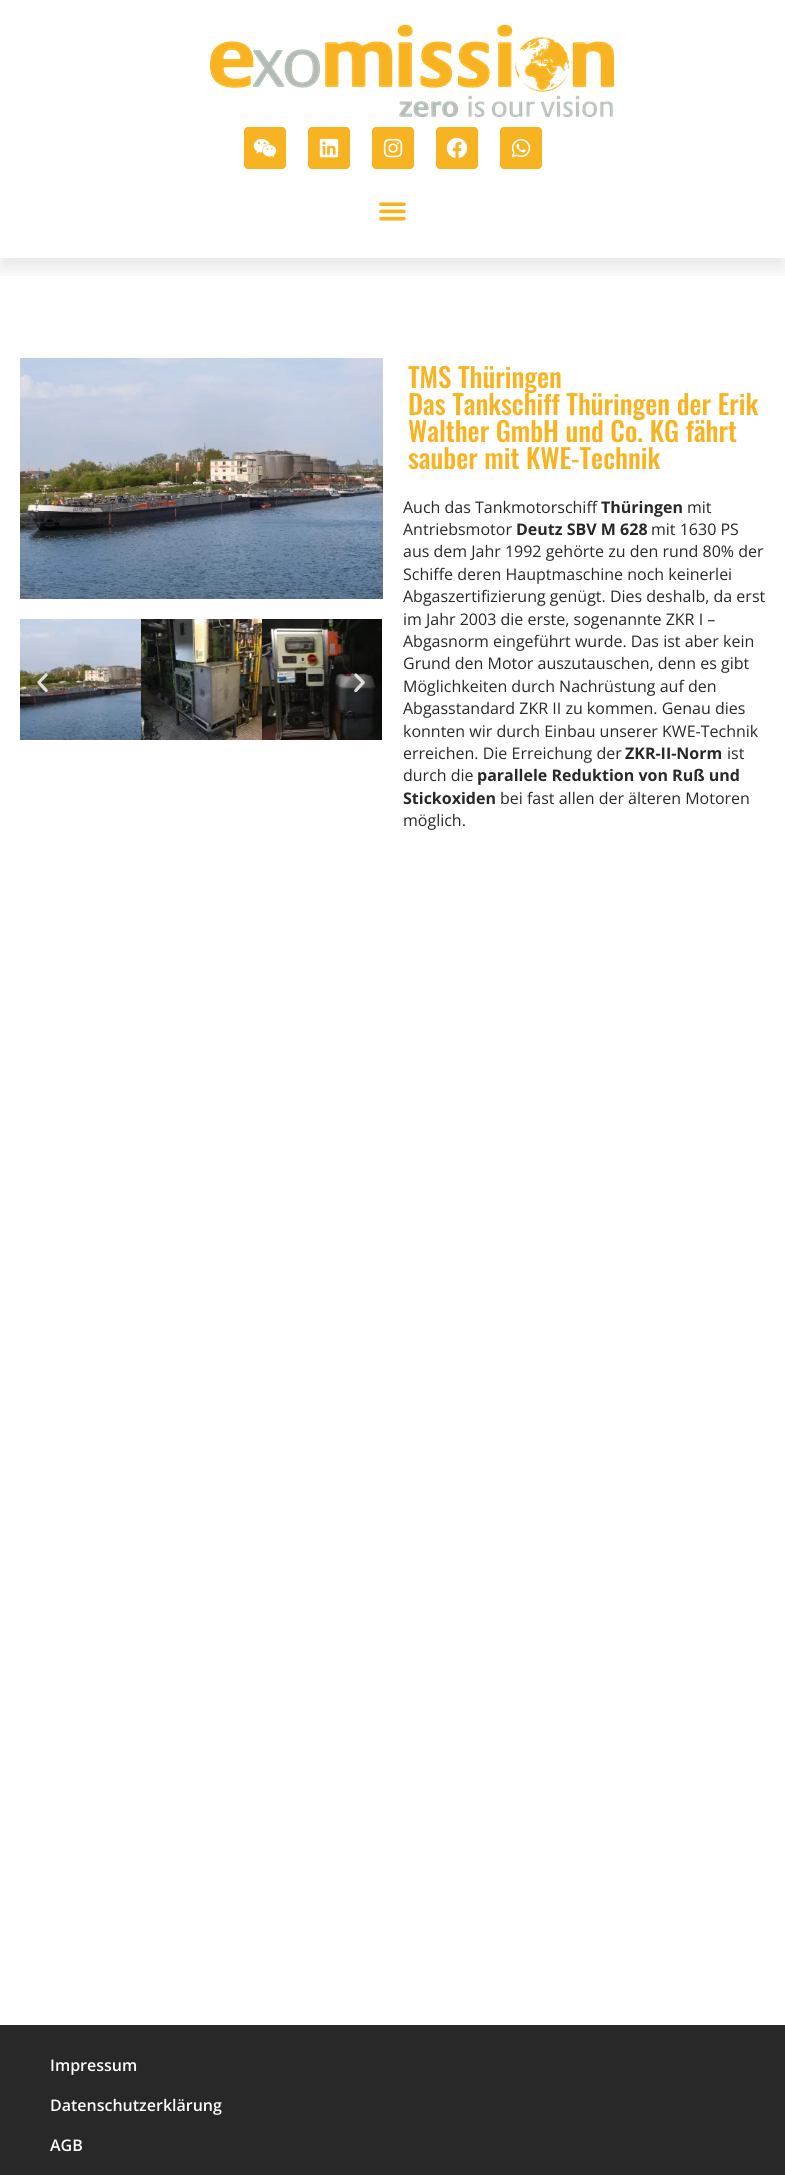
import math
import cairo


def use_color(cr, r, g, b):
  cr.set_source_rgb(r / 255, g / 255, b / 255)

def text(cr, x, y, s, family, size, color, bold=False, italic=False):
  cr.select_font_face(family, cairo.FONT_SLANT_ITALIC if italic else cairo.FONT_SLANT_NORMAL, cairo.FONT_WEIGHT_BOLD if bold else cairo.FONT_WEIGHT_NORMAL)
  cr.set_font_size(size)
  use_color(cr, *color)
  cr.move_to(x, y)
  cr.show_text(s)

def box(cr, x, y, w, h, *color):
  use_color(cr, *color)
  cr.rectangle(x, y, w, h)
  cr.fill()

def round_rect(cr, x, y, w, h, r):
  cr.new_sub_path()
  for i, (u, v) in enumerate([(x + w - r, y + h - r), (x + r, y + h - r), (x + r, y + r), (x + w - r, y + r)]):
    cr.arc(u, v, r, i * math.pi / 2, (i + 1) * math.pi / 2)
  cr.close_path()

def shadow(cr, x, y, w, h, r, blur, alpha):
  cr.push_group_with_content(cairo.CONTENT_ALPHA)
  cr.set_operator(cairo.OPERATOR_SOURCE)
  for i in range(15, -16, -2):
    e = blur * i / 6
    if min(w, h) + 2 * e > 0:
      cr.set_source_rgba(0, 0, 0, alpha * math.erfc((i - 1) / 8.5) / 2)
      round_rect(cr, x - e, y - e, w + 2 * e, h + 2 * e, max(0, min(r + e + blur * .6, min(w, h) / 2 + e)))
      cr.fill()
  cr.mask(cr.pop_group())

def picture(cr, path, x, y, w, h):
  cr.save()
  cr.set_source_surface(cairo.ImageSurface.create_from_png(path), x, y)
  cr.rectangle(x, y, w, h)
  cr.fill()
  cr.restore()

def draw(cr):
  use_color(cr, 255, 255, 255)
  cr.paint()
  cr.save()
  cr.rectangle(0, 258, 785, 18)
  cr.clip()
  use_color(cr, 0, 0, 0)
  shadow(cr, 0, 10, 785, 258, 0, 10, 0.1)
  cr.restore()
  picture(cr, "img_01.png", 210, 24, 404, 93)
  use_color(cr, 248, 179, 34)
  round_rect(cr, 244, 127, 42, 42, 4)
  cr.fill()
  picture(cr, "img_02.png", 253, 138, 24, 20)
  round_rect(cr, 308, 127, 42, 42, 4)
  cr.fill()
  picture(cr, "img_03.png", 319, 138, 20, 20)
  round_rect(cr, 372, 127, 42, 42, 4)
  cr.fill()
  picture(cr, "img_04.png", 383, 138, 20, 20)
  round_rect(cr, 436, 127, 42, 42, 4)
  cr.fill()
  picture(cr, "img_05.png", 446, 138, 22, 21)
  round_rect(cr, 500, 127, 42, 42, 4)
  cr.fill()
  picture(cr, "img_06.png", 511, 138, 20, 20)
  picture(cr, "img_07.png", 379, 202, 27, 19)
  picture(cr, "img_08.png", 20, 358, 363, 241)
  picture(cr, "img_09.png", 20, 619, 121, 121)
  picture(cr, "img_10.png", 141, 619, 121, 121)
  picture(cr, "img_11.png", 262, 619, 120, 121)
  picture(cr, "img_12.png", 37, 673, 11, 20)
  picture(cr, "img_13.png", 354, 673, 11, 20)
  box(cr, 0, 2025, 785, 150, 40, 40, 40)
  text(cr, 408, 388, "TMS Thüringen", "Oswald Medium", 27, (248, 179, 34))
  text(cr, 408, 415, "Das Tankschiff Thüringen der Erik", "Oswald Medium", 27, (248, 179, 34))
  text(cr, 408, 442, "Walther GmbH und Co. KG fährt", "Oswald Medium", 27, (248, 179, 34))
  text(cr, 408, 469, "sauber mit KWE-Technik", "Oswald Medium", 27, (248, 179, 34))
  text(cr, 403, 513, "Auch das Tankmotorschiff", "Open Sans", 16, (40, 40, 40))
  text(cr, 601, 513, "Thüringen", "Open Sans", 16, (40, 40, 40), bold=True)
  text(cr, 687, 513, "mit", "Open Sans", 16, (40, 40, 40))
  text(cr, 403, 535, "Antriebsmotor", "Open Sans", 16, (40, 40, 40))
  text(cr, 516, 535, "Deutz SBV M 628", "Open Sans", 16, (40, 40, 40), bold=True)
  text(cr, 651, 535, "mit 1630 PS", "Open Sans", 16, (40, 40, 40))
  text(cr, 403, 557, "aus dem Jahr 1992 gehörte zu den rund 80% der", "Open Sans", 16, (40, 40, 40))
  text(cr, 403, 580, "Schiffe deren Hauptmaschine noch keinerlei", "Open Sans", 16, (40, 40, 40))
  text(cr, 403, 602, "Abgaszertifizierung genügt. Dies deshalb, da erst", "Open Sans", 16, (40, 40, 40))
  text(cr, 403, 625, "im Jahr 2003 die erste, sogenannte ZKR I –", "Open Sans", 16, (40, 40, 40))
  text(cr, 403, 647, "Abgasnorm eingeführt wurde. Das ist aber kein", "Open Sans", 16, (40, 40, 40))
  text(cr, 403, 669, "Grund den Motor auszutauschen, denn es gibt", "Open Sans", 16, (40, 40, 40))
  text(cr, 403, 692, "Möglichkeiten durch Nachrüstung auf den", "Open Sans", 16, (40, 40, 40))
  text(cr, 403, 714, "Abgasstandard ZKR II zu kommen. Genau dies", "Open Sans", 16, (40, 40, 40))
  text(cr, 403, 737, "konnten wir durch Einbau unserer KWE-Technik", "Open Sans", 16, (40, 40, 40))
  text(cr, 403, 759, "erreichen. Die Erreichung der", "Open Sans", 16, (40, 40, 40))
  text(cr, 625, 759, "ZKR-II-Norm", "Open Sans", 16, (40, 40, 40), bold=True)
  text(cr, 727, 759, "ist", "Open Sans", 16, (40, 40, 40))
  text(cr, 403, 781, "durch die", "Open Sans", 16, (40, 40, 40))
  text(cr, 477, 781, "parallele Reduktion von Ruß und", "Open Sans", 16, (40, 40, 40), bold=True)
  text(cr, 403, 804, "Stickoxiden", "Open Sans", 16, (40, 40, 40), bold=True)
  text(cr, 500, 804, "bei fast allen der älteren Motoren", "Open Sans", 16, (40, 40, 40))
  text(cr, 403, 826, "möglich.", "Open Sans", 16, (40, 40, 40))
  text(cr, 50, 2071, "Impressum", "Open Sans SemiBold", 16, (255, 255, 255))
  text(cr, 50, 2111, "Datenschutzerklärung", "Open Sans SemiBold", 16, (255, 255, 255))
  text(cr, 50, 2151, "AGB", "Open Sans SemiBold", 16, (255, 255, 255))


surface = cairo.ImageSurface(cairo.FORMAT_RGB24, 785, 2175)
cr = cairo.Context(surface)
options = cairo.FontOptions()
options.set_hint_metrics(cairo.HINT_METRICS_OFF)
options.set_hint_style(cairo.HINT_STYLE_NONE)
cr.set_font_options(options)
cr.set_miter_limit(4)
draw(cr)
surface.write_to_png("out.png")
